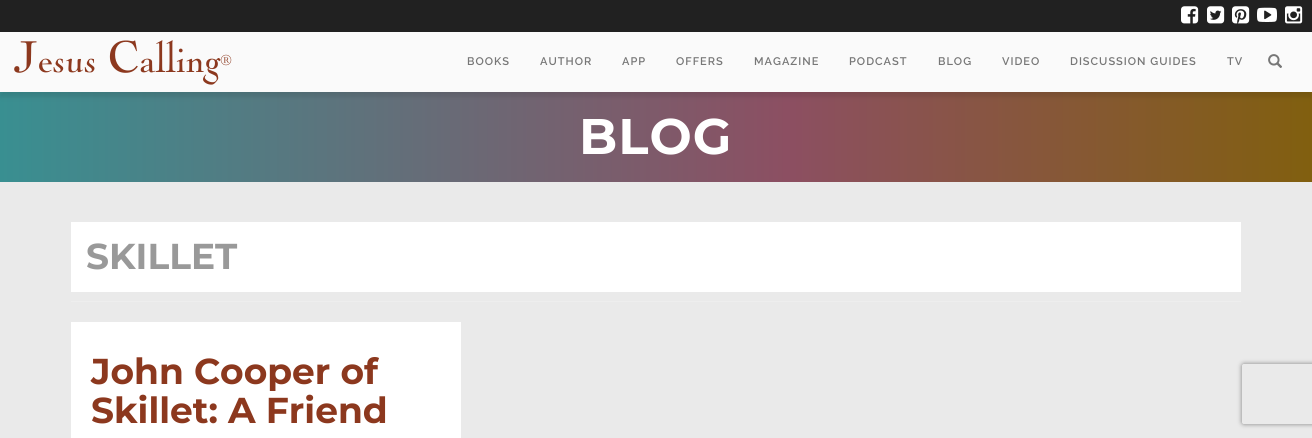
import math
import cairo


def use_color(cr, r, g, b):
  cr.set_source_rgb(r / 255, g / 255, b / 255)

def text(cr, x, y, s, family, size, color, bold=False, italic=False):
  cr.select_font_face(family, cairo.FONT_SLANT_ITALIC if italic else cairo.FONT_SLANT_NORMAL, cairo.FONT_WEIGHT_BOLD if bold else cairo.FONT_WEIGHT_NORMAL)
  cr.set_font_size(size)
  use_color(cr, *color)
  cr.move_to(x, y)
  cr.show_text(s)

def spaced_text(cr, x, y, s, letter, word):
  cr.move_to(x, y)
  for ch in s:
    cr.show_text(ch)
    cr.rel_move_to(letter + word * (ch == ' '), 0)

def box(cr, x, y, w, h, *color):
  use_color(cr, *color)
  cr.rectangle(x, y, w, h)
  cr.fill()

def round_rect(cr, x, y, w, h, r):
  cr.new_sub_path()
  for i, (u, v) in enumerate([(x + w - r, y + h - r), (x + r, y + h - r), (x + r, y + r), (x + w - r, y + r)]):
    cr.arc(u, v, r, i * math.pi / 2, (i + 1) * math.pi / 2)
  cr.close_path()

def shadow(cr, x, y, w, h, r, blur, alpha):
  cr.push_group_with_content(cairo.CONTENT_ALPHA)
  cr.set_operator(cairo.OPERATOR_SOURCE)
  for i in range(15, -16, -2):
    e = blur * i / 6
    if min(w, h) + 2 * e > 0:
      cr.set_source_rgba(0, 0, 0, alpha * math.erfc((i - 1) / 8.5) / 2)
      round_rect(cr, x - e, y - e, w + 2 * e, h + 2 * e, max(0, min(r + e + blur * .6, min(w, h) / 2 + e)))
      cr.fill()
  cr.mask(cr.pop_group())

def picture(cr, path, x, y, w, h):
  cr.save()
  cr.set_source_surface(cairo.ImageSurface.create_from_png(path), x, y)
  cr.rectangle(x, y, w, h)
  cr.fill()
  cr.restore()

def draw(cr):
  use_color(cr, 33, 33, 33)
  cr.paint()
  picture(cr, "img_01.png", 1181, 6, 18, 18)
  picture(cr, "img_02.png", 1207, 6, 18, 18)
  picture(cr, "img_03.png", 1232, 6, 18, 18)
  picture(cr, "img_04.png", 1257, 7, 20, 15)
  picture(cr, "img_05.png", 1285, 6, 18, 18)
  gradient = cairo.LinearGradient(0, 137, 1312, 137)
  gradient.add_color_stop_rgba(0, 0.224, 0.561, 0.569, 1)
  gradient.add_color_stop_rgba(0.6, 0.549, 0.31, 0.384, 1)
  gradient.add_color_stop_rgba(1, 0.506, 0.373, 0.059, 1)
  cr.set_source(gradient)
  cr.rectangle(0, 92, 1312, 90)
  cr.fill()
  use_color(cr, 0, 0, 0)
  shadow(cr, 0, 37, 1312, 60, 0, 2.5, 0.1)
  box(cr, 0, 32, 1312, 60, 250, 250, 250)
  picture(cr, "img_06.png", 1268, 54, 14, 14)
  box(cr, 0, 182, 1312, 256, 234, 234, 234)
  box(cr, 71, 301, 1170, 1, 238, 238, 238)
  box(cr, 71, 222, 1170, 70, 255, 255, 255)
  box(cr, 71, 322, 390, 116, 255, 255, 255)
  cr.save()
  cr.set_fill_rule(cairo.FILL_RULE_EVEN_ODD)
  cr.new_path()
  cr.move_to(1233, 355)
  cr.line_to(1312, 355)
  cr.line_to(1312, 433)
  cr.line_to(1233, 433)
  cr.close_path()
  cr.move_to(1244, 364)
  cr.line_to(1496, 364)
  cr.curve_to(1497, 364, 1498, 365, 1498, 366)
  cr.line_to(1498, 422)
  cr.curve_to(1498, 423, 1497, 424, 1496, 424)
  cr.line_to(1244, 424)
  cr.curve_to(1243, 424, 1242, 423, 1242, 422)
  cr.line_to(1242, 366)
  cr.curve_to(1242, 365, 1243, 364, 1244, 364)
  cr.close_path()
  cr.clip()
  use_color(cr, 128, 128, 128)
  shadow(cr, 1242, 364, 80, 60, 2, 2.5, 1)
  cr.restore()
  text(cr, 15, 72, "Jesus Calling", "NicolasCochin", 46, (140, 56, 30))
  text(cr, 220, 65, "®", "NicolasCochin", 15, (140, 56, 30))
  cr.select_font_face("Raleway SemiBold")
  cr.set_font_size(11)
  use_color(cr, 119, 119, 119)
  spaced_text(cr, 467, 65, "BOOKS", 1, 0)
  spaced_text(cr, 540, 65, "AUTHOR", 1, 0)
  spaced_text(cr, 622, 65, "APP", 1, 0)
  spaced_text(cr, 676, 65, "OFFERS", 1, 0)
  spaced_text(cr, 754, 65, "MAGAZINE", 1, 0)
  spaced_text(cr, 849, 65, "PODCAST", 1, 0)
  spaced_text(cr, 938, 65, "BLOG", 1, 0)
  spaced_text(cr, 1002, 65, "VIDEO", 1, 0)
  spaced_text(cr, 1070, 65, "DISCUSSION GUIDES", 1, 0)
  spaced_text(cr, 1227, 65, "TV", 1, 0)
  cr.select_font_face("Montserrat", cairo.FONT_SLANT_NORMAL, cairo.FONT_WEIGHT_BOLD)
  cr.set_font_size(50)
  use_color(cr, 255, 255, 255)
  spaced_text(cr, 579, 154, "BLOG", 1, 0)
  text(cr, 86, 269, "SKILLET", "Montserrat", 36, (153, 153, 153), bold=True)
  text(cr, 91, 384, "John Cooper of", "Montserrat", 36, (140, 56, 30), bold=True)
  text(cr, 91, 423, "Skillet: A Friend", "Montserrat", 36, (140, 56, 30), bold=True)


surface = cairo.ImageSurface(cairo.FORMAT_RGB24, 1312, 438)
cr = cairo.Context(surface)
options = cairo.FontOptions()
options.set_hint_metrics(cairo.HINT_METRICS_OFF)
options.set_hint_style(cairo.HINT_STYLE_NONE)
cr.set_font_options(options)
cr.set_miter_limit(4)
draw(cr)
surface.write_to_png("out.png")
